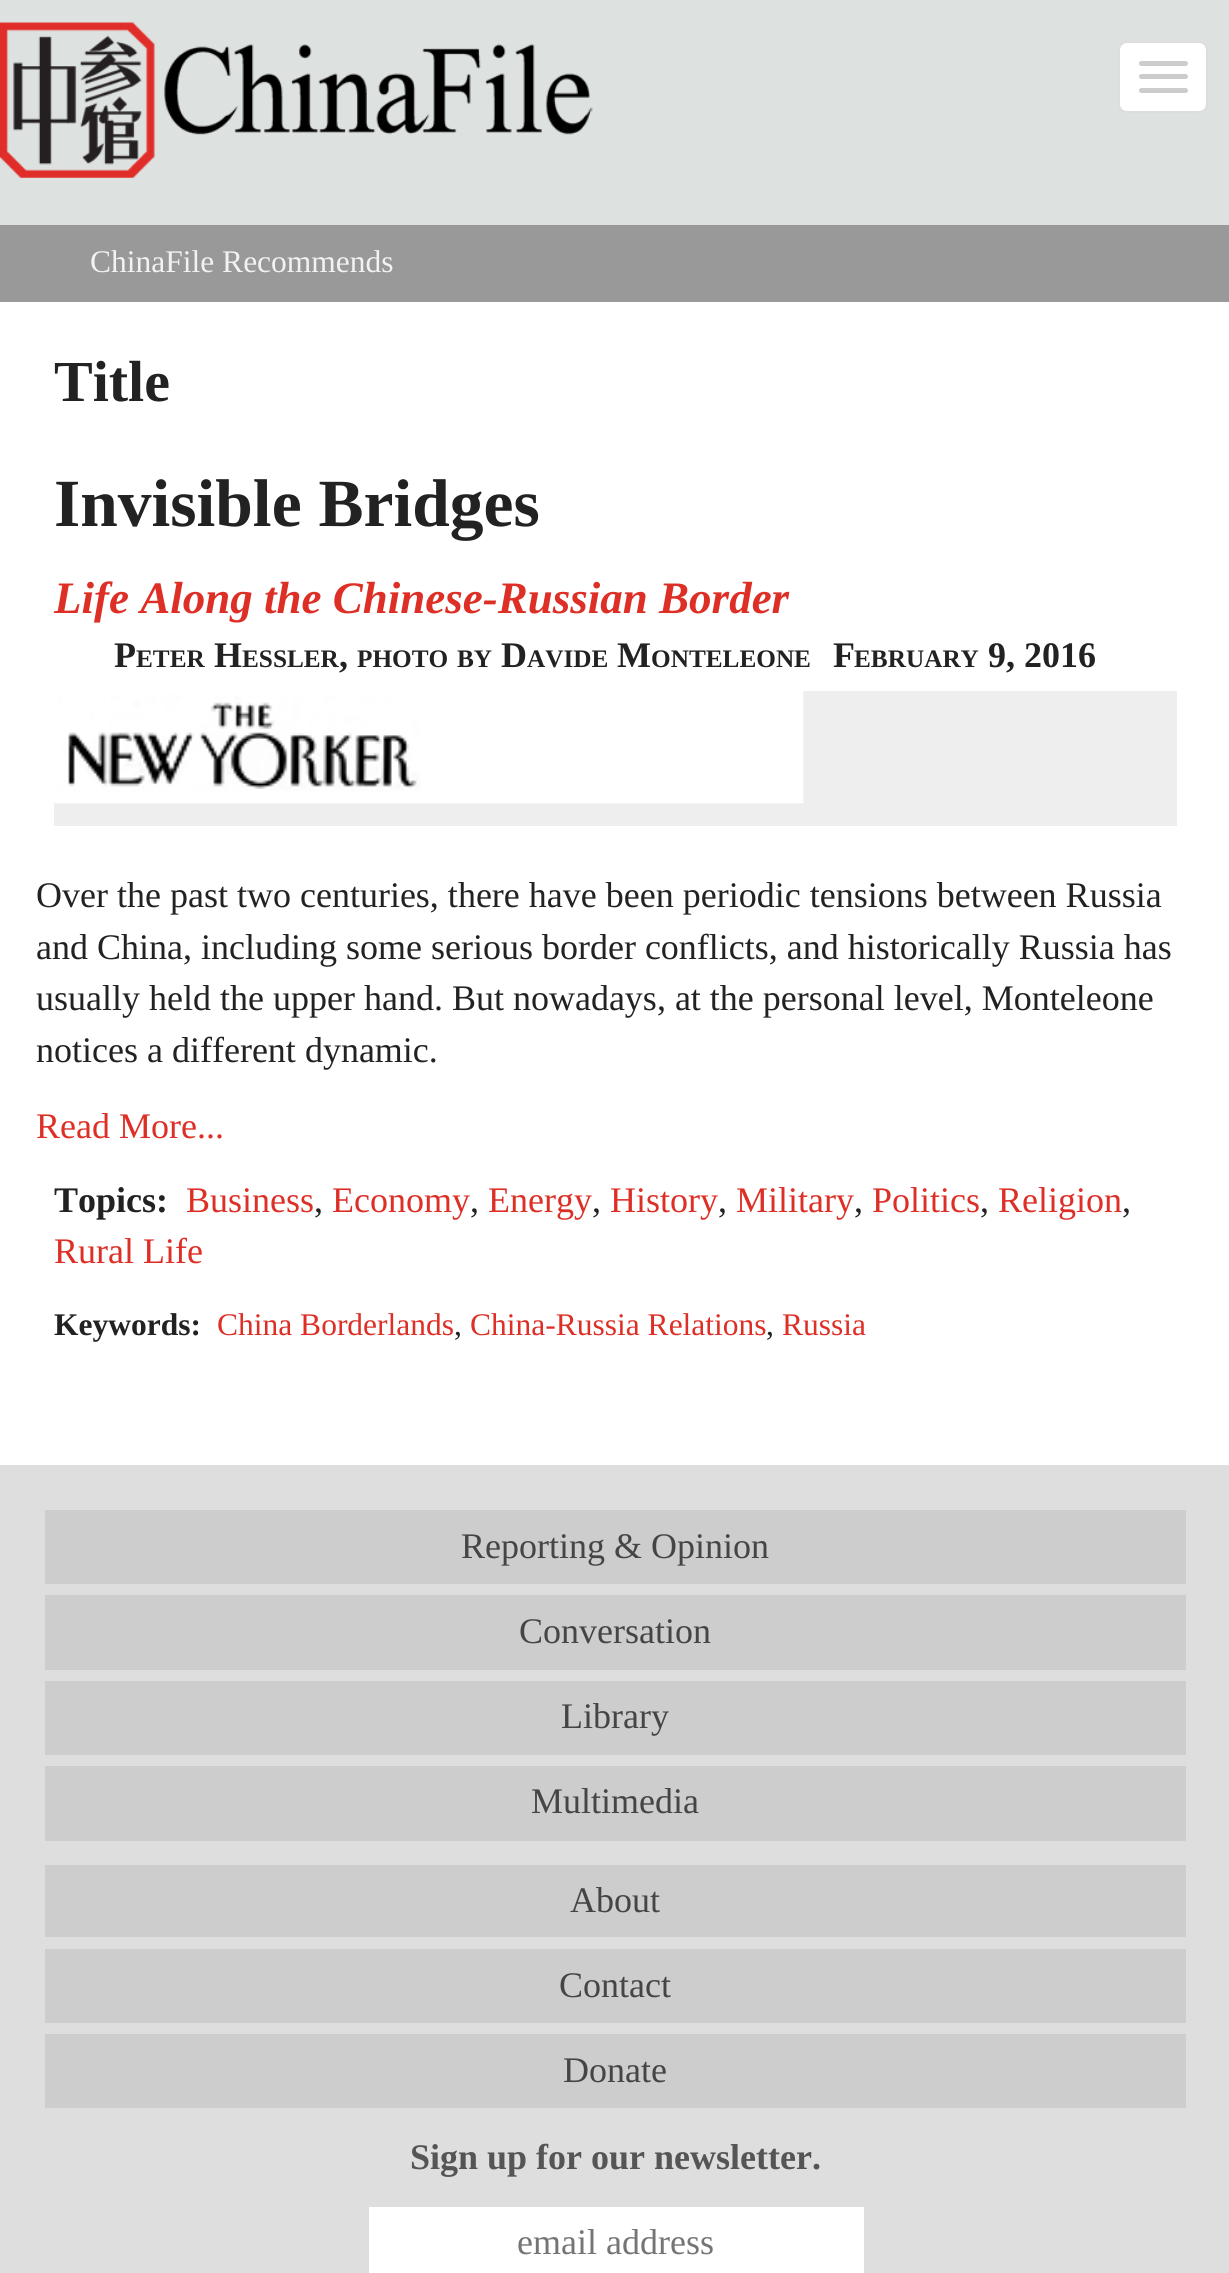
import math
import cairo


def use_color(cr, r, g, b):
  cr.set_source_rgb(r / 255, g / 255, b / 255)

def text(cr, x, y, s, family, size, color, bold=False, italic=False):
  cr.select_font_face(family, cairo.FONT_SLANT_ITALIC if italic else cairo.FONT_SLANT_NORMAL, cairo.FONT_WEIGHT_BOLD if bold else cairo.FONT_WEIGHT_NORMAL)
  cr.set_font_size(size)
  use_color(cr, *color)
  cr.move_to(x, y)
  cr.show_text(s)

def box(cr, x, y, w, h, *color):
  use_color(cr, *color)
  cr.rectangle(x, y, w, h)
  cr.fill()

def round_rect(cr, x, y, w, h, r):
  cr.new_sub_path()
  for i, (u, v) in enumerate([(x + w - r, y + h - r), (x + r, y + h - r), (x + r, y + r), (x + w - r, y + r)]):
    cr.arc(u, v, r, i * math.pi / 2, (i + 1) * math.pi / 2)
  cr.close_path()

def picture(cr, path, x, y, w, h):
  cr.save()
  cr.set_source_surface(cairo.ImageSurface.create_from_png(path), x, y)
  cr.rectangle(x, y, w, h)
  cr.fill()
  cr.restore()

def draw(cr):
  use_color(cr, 255, 255, 255)
  cr.paint()
  box(cr, 0, 0, 1229, 225, 221, 225, 224)
  picture(cr, "img_01.png", 0, 22, 593, 156)
  use_color(cr, 255, 255, 255)
  round_rect(cr, 1119, 42, 88, 70, 8)
  cr.fill_preserve()
  use_color(cr, 221, 221, 221)
  cr.stroke()
  use_color(cr, 204, 204, 204)
  round_rect(cr, 1139, 61, 49, 5, 2.5)
  cr.fill()
  round_rect(cr, 1139, 74, 49, 5, 2.5)
  cr.fill()
  round_rect(cr, 1139, 88, 49, 5, 2.5)
  cr.fill()
  box(cr, 0, 225, 1229, 77, 153, 153, 153)
  box(cr, 54, 691, 1123, 135, 238, 238, 238)
  picture(cr, "img_02.png", 54, 691, 750, 113)
  box(cr, 0, 1465, 1229, 808, 222, 222, 222)
  box(cr, 45, 1510, 1141, 74, 205, 205, 205)
  box(cr, 45, 1595, 1141, 75, 205, 205, 205)
  box(cr, 45, 1681, 1141, 74, 205, 205, 205)
  box(cr, 45, 1766, 1141, 75, 205, 205, 205)
  box(cr, 45, 1865, 1141, 72, 205, 205, 205)
  box(cr, 45, 1949, 1141, 74, 205, 205, 205)
  box(cr, 45, 2034, 1141, 74, 205, 205, 205)
  box(cr, 369, 2207, 495, 66, 255, 255, 255)
  text(cr, 90, 272, "ChinaFile Recommends", "Liberation Serif", 31.5, (242, 242, 242))
  text(cr, 54, 401, "Title", "Liberation Serif", 58, (34, 34, 34), bold=True)
  text(cr, 54, 526, "Invisible Bridges", "Liberation Serif", 67.5, (34, 34, 34), bold=True)
  text(cr, 54, 613, "Life Along the Chinese-Russian Border", "Liberation Serif", 45, (221, 47, 38), bold=True, italic=True)
  text(cr, 114, 667, "P", "Liberation Serif", 36, (34, 34, 34), bold=True)
  text(cr, 136, 667, "ETER", "Liberation Serif", 25.25, (34, 34, 34), bold=True)
  text(cr, 214, 667, "H", "Liberation Serif", 36, (34, 34, 34), bold=True)
  text(cr, 242, 667, "ESSLER", "Liberation Serif", 25.25, (34, 34, 34), bold=True)
  text(cr, 339, 667, ",", "Liberation Serif", 36, (34, 34, 34), bold=True)
  text(cr, 357, 667, "PHOTO", "Liberation Serif", 25.25, (34, 34, 34), bold=True)
  text(cr, 457, 667, "BY", "Liberation Serif", 25.25, (34, 34, 34), bold=True)
  text(cr, 501, 667, "D", "Liberation Serif", 36, (34, 34, 34), bold=True)
  text(cr, 527, 667, "AVIDE", "Liberation Serif", 25.25, (34, 34, 34), bold=True)
  text(cr, 617, 667, "M", "Liberation Serif", 36, (34, 34, 34), bold=True)
  text(cr, 651, 667, "ONTELEONE", "Liberation Serif", 25.25, (34, 34, 34), bold=True)
  text(cr, 833, 667, "F", "Liberation Serif", 36, (34, 34, 34), bold=True)
  text(cr, 854, 667, "EBRUARY", "Liberation Serif", 25.25, (34, 34, 34), bold=True)
  text(cr, 988, 667, "9, 2016", "Liberation Serif", 36, (34, 34, 34), bold=True)
  text(cr, 36, 907, "Over the past two centuries, there have been periodic tensions between Russia", "Liberation Serif", 36, (34, 34, 34))
  text(cr, 36, 959, "and China, including some serious border conflicts, and historically Russia has", "Liberation Serif", 36, (34, 34, 34))
  text(cr, 36, 1010, "usually held the upper hand. But nowadays, at the personal level, Monteleone", "Liberation Serif", 36, (34, 34, 34))
  text(cr, 36, 1062, "notices a different dynamic.", "Liberation Serif", 36, (34, 34, 34))
  text(cr, 36, 1138, "Read More...", "Liberation Serif", 36, (221, 47, 38))
  text(cr, 54, 1212, "Topics:", "Liberation Serif", 36, (34, 34, 34), bold=True)
  text(cr, 186, 1212, "Business", "Liberation Serif", 36, (221, 47, 38))
  text(cr, 314, 1212, ",", "Liberation Serif", 36, (34, 34, 34))
  text(cr, 332, 1212, "Economy", "Liberation Serif", 36, (221, 47, 38))
  text(cr, 470, 1212, ",", "Liberation Serif", 36, (34, 34, 34))
  text(cr, 488, 1212, "Energy", "Liberation Serif", 36, (221, 47, 38))
  text(cr, 592, 1212, ",", "Liberation Serif", 36, (34, 34, 34))
  text(cr, 610, 1212, "History", "Liberation Serif", 36, (221, 47, 38))
  text(cr, 718, 1212, ",", "Liberation Serif", 36, (34, 34, 34))
  text(cr, 736, 1212, "Military", "Liberation Serif", 36, (221, 47, 38))
  text(cr, 854, 1212, ",", "Liberation Serif", 36, (34, 34, 34))
  text(cr, 872, 1212, "Politics", "Liberation Serif", 36, (221, 47, 38))
  text(cr, 980, 1212, ",", "Liberation Serif", 36, (34, 34, 34))
  text(cr, 998, 1212, "Religion", "Liberation Serif", 36, (221, 47, 38))
  text(cr, 1122, 1212, ",", "Liberation Serif", 36, (34, 34, 34))
  text(cr, 54, 1263, "Rural Life", "Liberation Serif", 36, (221, 47, 38))
  text(cr, 54, 1335, "Keywords:", "Liberation Serif", 31.5, (34, 34, 34), bold=True)
  text(cr, 217, 1335, "China Borderlands", "Liberation Serif", 31.5, (221, 47, 38))
  text(cr, 454, 1335, ",", "Liberation Serif", 31.5, (34, 34, 34))
  text(cr, 470, 1335, "China-Russia Relations", "Liberation Serif", 31.5, (221, 47, 38))
  text(cr, 766, 1335, ",", "Liberation Serif", 31.5, (34, 34, 34))
  text(cr, 782, 1335, "Russia", "Liberation Serif", 31.5, (221, 47, 38))
  text(cr, 461, 1558, "Reporting & Opinion", "Liberation Serif", 36, (69, 69, 69))
  text(cr, 519, 1643, "Conversation", "Liberation Serif", 36, (69, 69, 69))
  text(cr, 561, 1728, "Library", "Liberation Serif", 36, (69, 69, 69))
  text(cr, 531, 1813, "Multimedia", "Liberation Serif", 36, (69, 69, 69))
  text(cr, 570, 1912, "About", "Liberation Serif", 36, (69, 69, 69))
  text(cr, 559, 1997, "Contact", "Liberation Serif", 36, (69, 69, 69))
  text(cr, 563, 2082, "Donate", "Liberation Serif", 36, (69, 69, 69))
  text(cr, 410, 2169, "Sign up for our newsletter.", "Liberation Serif", 36, (85, 85, 85), bold=True)
  text(cr, 517, 2254, "email address", "Liberation Serif", 36, (117, 117, 117))


surface = cairo.ImageSurface(cairo.FORMAT_RGB24, 1229, 2273)
cr = cairo.Context(surface)
options = cairo.FontOptions()
options.set_hint_metrics(cairo.HINT_METRICS_OFF)
options.set_hint_style(cairo.HINT_STYLE_NONE)
cr.set_font_options(options)
cr.set_miter_limit(4)
draw(cr)
surface.write_to_png("out.png")
